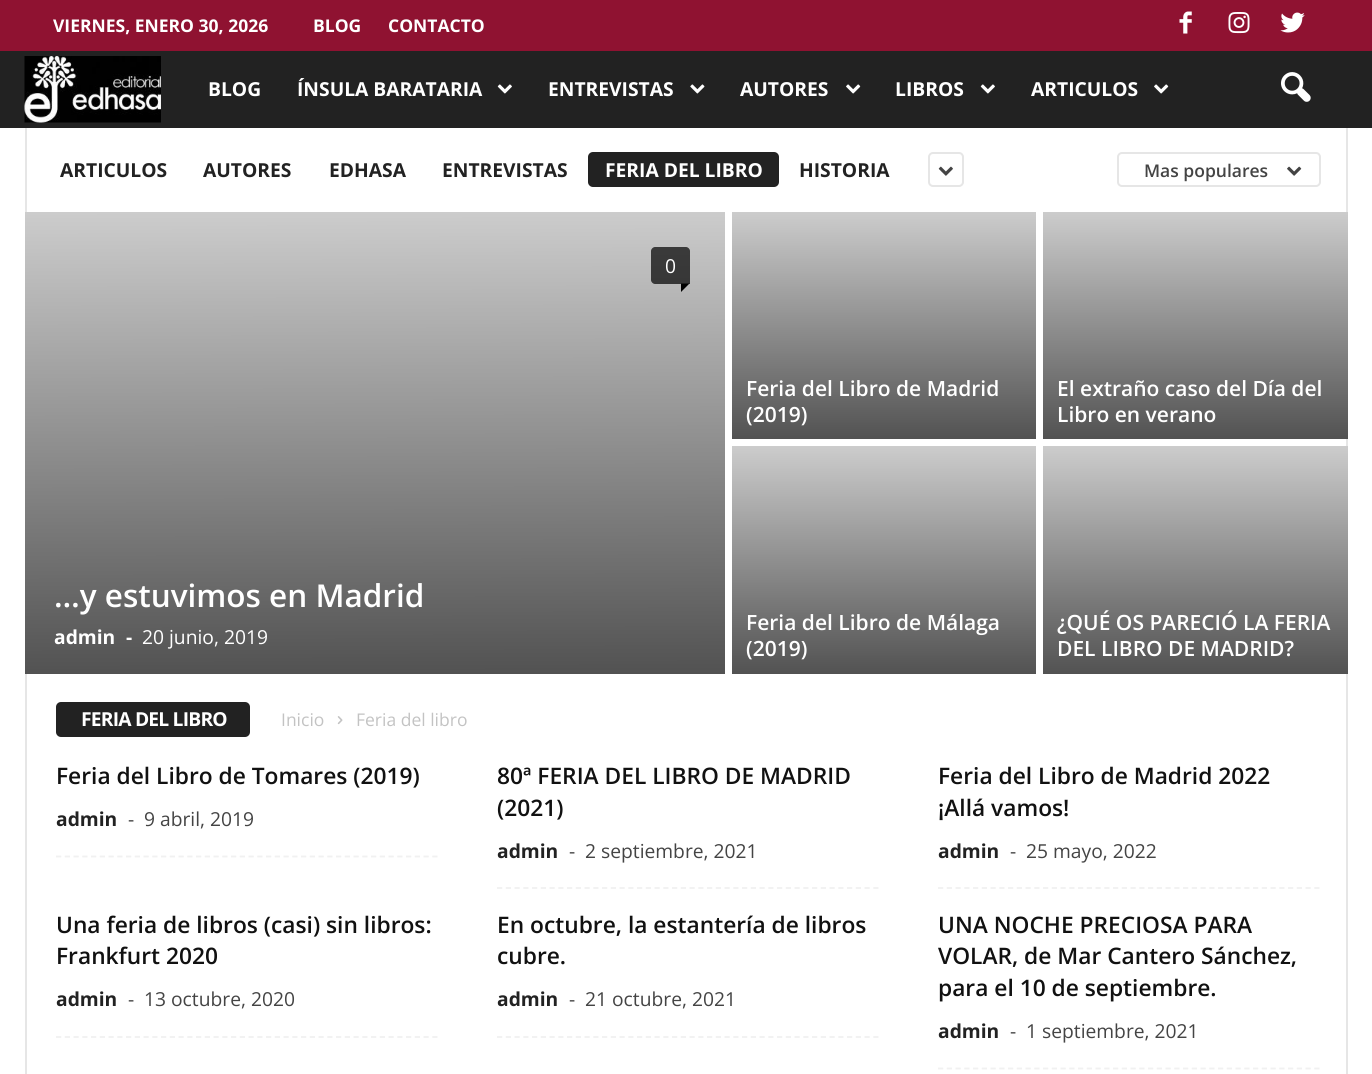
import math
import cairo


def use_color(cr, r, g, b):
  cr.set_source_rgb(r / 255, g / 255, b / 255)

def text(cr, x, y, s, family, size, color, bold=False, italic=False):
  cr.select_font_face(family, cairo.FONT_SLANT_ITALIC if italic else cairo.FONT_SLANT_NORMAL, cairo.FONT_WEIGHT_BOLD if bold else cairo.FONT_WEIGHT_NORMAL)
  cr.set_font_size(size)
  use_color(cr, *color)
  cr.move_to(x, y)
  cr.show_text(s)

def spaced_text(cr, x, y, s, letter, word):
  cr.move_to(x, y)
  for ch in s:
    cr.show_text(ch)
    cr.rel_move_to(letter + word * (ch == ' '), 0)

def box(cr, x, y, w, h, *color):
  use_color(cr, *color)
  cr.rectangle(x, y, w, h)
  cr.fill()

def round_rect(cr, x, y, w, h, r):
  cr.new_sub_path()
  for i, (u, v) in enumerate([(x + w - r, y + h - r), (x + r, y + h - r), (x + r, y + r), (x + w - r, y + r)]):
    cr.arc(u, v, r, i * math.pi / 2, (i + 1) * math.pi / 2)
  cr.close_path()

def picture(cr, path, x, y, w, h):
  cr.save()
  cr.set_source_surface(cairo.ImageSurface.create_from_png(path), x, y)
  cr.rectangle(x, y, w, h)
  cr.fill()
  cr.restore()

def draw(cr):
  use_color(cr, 255, 255, 255)
  cr.paint()
  box(cr, 0, 0, 1372, 51, 143, 18, 49)
  picture(cr, "img_01.png", 1179, 11, 13, 23)
  picture(cr, "img_02.png", 1228, 12, 22, 22)
  picture(cr, "img_03.png", 1280, 12, 25, 21)
  box(cr, 0, 51, 1372, 77, 34, 34, 34)
  picture(cr, "img_04.png", 24, 56, 137, 67)
  picture(cr, "img_05.png", 497, 84, 15, 10)
  picture(cr, "img_06.png", 690, 84, 15, 10)
  picture(cr, "img_07.png", 846, 84, 15, 10)
  picture(cr, "img_05.png", 980, 84, 15, 10)
  picture(cr, "img_07.png", 1154, 84, 15, 10)
  picture(cr, "img_08.png", 1281, 72, 30, 30)
  box(cr, 25, 128, 2, 84, 230, 230, 230)
  use_color(cr, 34, 34, 34)
  round_rect(cr, 588, 152, 191, 35, 5)
  cr.fill()
  round_rect(cr, 929, 153, 34, 33, 4)
  use_color(cr, 230, 230, 230)
  cr.stroke()
  picture(cr, "img_09.png", 938, 166, 15, 10)
  round_rect(cr, 1118, 153, 202, 33, 4)
  cr.stroke()
  picture(cr, "img_10.png", 1287, 166, 15, 10)
  box(cr, 1346, 128, 2, 84, 230, 230, 230)
  box(cr, 25, 674, 2, 400, 230, 230, 230)
  gradient = cairo.LinearGradient(374, 212, 375, 674)
  gradient.add_color_stop_rgba(0, 0.8, 0.8, 0.8, 1)
  gradient.add_color_stop_rgba(1, 0.322, 0.322, 0.322, 1)
  cr.set_source(gradient)
  cr.rectangle(25, 212, 700, 462)
  cr.fill()
  cr.set_source_rgba(0, 0, 0, 0.7)
  cr.new_path()
  cr.move_to(655, 247)
  cr.line_to(686, 247)
  cr.curve_to(688, 247, 690, 249, 690, 251)
  cr.line_to(690, 284)
  cr.line_to(655, 284)
  cr.curve_to(653, 284, 651, 282, 651, 280)
  cr.line_to(651, 251)
  cr.curve_to(651, 249, 653, 247, 655, 247)
  cr.close_path()
  cr.fill()
  use_color(cr, 0, 0, 0)
  cr.new_path()
  cr.move_to(681, 283.5)
  cr.line_to(689.5, 283.5)
  cr.line_to(681, 292)
  cr.close_path()
  cr.fill()
  gradient = cairo.LinearGradient(884, 212, 884, 439)
  gradient.add_color_stop_rgba(0, 0.8, 0.8, 0.8, 1)
  gradient.add_color_stop_rgba(1, 0.322, 0.322, 0.322, 1)
  cr.set_source(gradient)
  cr.rectangle(732, 212, 304, 227)
  cr.fill()
  gradient = cairo.LinearGradient(1195, 212, 1195, 439)
  gradient.add_color_stop_rgba(0, 0.8, 0.8, 0.8, 1)
  gradient.add_color_stop_rgba(1, 0.322, 0.322, 0.322, 1)
  cr.set_source(gradient)
  cr.rectangle(1043, 212, 305, 227)
  cr.fill()
  gradient = cairo.LinearGradient(884, 446, 884, 674)
  gradient.add_color_stop_rgba(0, 0.8, 0.8, 0.8, 1)
  gradient.add_color_stop_rgba(1, 0.322, 0.322, 0.322, 1)
  cr.set_source(gradient)
  cr.rectangle(732, 446, 304, 228)
  cr.fill()
  box(cr, 1346, 439, 2, 635, 230, 230, 230)
  gradient = cairo.LinearGradient(1195, 446, 1195, 674)
  gradient.add_color_stop_rgba(0, 0.8, 0.8, 0.8, 1)
  gradient.add_color_stop_rgba(1, 0.322, 0.322, 0.322, 1)
  cr.set_source(gradient)
  cr.rectangle(1043, 446, 305, 228)
  cr.fill()
  use_color(cr, 34, 34, 34)
  round_rect(cr, 56, 702, 194, 35, 5)
  cr.fill()
  picture(cr, "img_11.png", 337, 716, 6, 9)
  cr.new_path()
  cr.move_to(56, 856.5)
  cr.line_to(437.5, 856.5)
  use_color(cr, 241, 241, 241)
  cr.set_line_width(1.8)
  cr.set_dash([5.25, 3.5])
  cr.stroke()
  cr.new_path()
  cr.move_to(497, 888)
  cr.line_to(878.5, 888)
  cr.stroke()
  cr.new_path()
  cr.move_to(938, 888)
  cr.line_to(1319.5, 888)
  cr.stroke()
  cr.new_path()
  cr.move_to(56, 1037)
  cr.line_to(437.5, 1037)
  cr.stroke()
  cr.new_path()
  cr.move_to(497, 1037)
  cr.line_to(878.5, 1037)
  cr.stroke()
  cr.new_path()
  cr.move_to(938, 1068.5)
  cr.line_to(1319.5, 1068.5)
  cr.stroke()
  text(cr, 53, 32, "VIERNES, ENERO 30, 2026", "Open Sans", 17.5, (255, 255, 255), bold=True)
  text(cr, 313, 32, "BLOG", "Open Sans", 17.5, (255, 255, 255), bold=True)
  text(cr, 388, 32, "CONTACTO", "Open Sans", 17.5, (255, 255, 255), bold=True)
  text(cr, 208, 96, "BLOG", "Open Sans", 19.25, (255, 255, 255), bold=True)
  text(cr, 297, 96, "ÍNSULA BARATARIA", "Open Sans", 19.25, (255, 255, 255), bold=True)
  text(cr, 548, 96, "ENTREVISTAS", "Open Sans", 19.25, (255, 255, 255), bold=True)
  text(cr, 740, 96, "AUTORES", "Open Sans", 19.25, (255, 255, 255), bold=True)
  text(cr, 895, 96, "LIBROS", "Open Sans", 19.25, (255, 255, 255), bold=True)
  text(cr, 1031, 96, "ARTICULOS", "Open Sans", 19.25, (255, 255, 255), bold=True)
  text(cr, 60, 177, "ARTICULOS", "Open Sans", 19.25, (34, 34, 34), bold=True)
  text(cr, 203, 177, "AUTORES", "Open Sans", 19.25, (34, 34, 34), bold=True)
  text(cr, 329, 177, "EDHASA", "Open Sans", 19.25, (34, 34, 34), bold=True)
  text(cr, 442, 177, "ENTREVISTAS", "Open Sans", 19.25, (34, 34, 34), bold=True)
  text(cr, 605, 177, "FERIA DEL LIBRO", "Open Sans", 19.25, (255, 255, 255), bold=True)
  text(cr, 799, 177, "HISTORIA", "Open Sans", 19.25, (34, 34, 34), bold=True)
  text(cr, 1144, 177, "Mas populares", "Open Sans SemiBold", 17.5, (68, 68, 68))
  text(cr, 665, 273, "0", "Open Sans", 19.25, (255, 255, 255))
  text(cr, 54, 607, "…y estuvimos en Madrid", "Open Sans SemiBold", 31.5, (255, 255, 255))
  text(cr, 54, 644, "admin", "Open Sans", 19.25, (255, 255, 255), bold=True)
  text(cr, 126, 644, "-", "Open Sans", 19.25, (255, 255, 255), bold=True)
  text(cr, 142, 644, "20 junio, 2019", "Open Sans", 19.25, (255, 255, 255))
  text(cr, 746, 396, "Feria del Libro de Madrid", "Open Sans SemiBold", 21, (255, 255, 255))
  text(cr, 746, 422, "(2019)", "Open Sans SemiBold", 21, (255, 255, 255))
  text(cr, 1057, 396, "El extraño caso del Día del", "Open Sans SemiBold", 21, (255, 255, 255))
  text(cr, 1057, 422, "Libro en verano", "Open Sans SemiBold", 21, (255, 255, 255))
  text(cr, 746, 630, "Feria del Libro de Málaga", "Open Sans SemiBold", 21, (255, 255, 255))
  text(cr, 746, 656, "(2019)", "Open Sans SemiBold", 21, (255, 255, 255))
  text(cr, 1057, 630, "¿QUÉ OS PARECIÓ LA FERIA", "Open Sans SemiBold", 21, (255, 255, 255))
  text(cr, 1057, 656, "DEL LIBRO DE MADRID?", "Open Sans SemiBold", 21, (255, 255, 255))
  cr.select_font_face("Open Sans", cairo.FONT_SLANT_NORMAL, cairo.FONT_WEIGHT_BOLD)
  cr.set_font_size(19.25)
  spaced_text(cr, 81, 726, "FERIA DEL LIBRO", -0.8, 0)
  text(cr, 281, 726, "Inicio", "Open Sans", 17.5, (195, 195, 195))
  text(cr, 356, 726, "Feria del libro", "Open Sans", 17.5, (195, 195, 195))
  text(cr, 56, 784, "Feria del Libro de Tomares (2019)", "Open Sans SemiBold", 22.75, (17, 17, 17))
  text(cr, 56, 826, "admin", "Open Sans", 19.25, (34, 34, 34), bold=True)
  text(cr, 128, 826, "-", "Open Sans", 19.25, (68, 68, 68))
  text(cr, 144, 826, "9 abril, 2019", "Open Sans", 19.25, (68, 68, 68))
  text(cr, 497, 784, "80ª FERIA DEL LIBRO DE MADRID", "Open Sans SemiBold", 22.75, (17, 17, 17))
  text(cr, 497, 816, "(2021)", "Open Sans SemiBold", 22.75, (17, 17, 17))
  text(cr, 497, 858, "admin", "Open Sans", 19.25, (34, 34, 34), bold=True)
  text(cr, 569, 858, "-", "Open Sans", 19.25, (68, 68, 68))
  text(cr, 585, 858, "2 septiembre, 2021", "Open Sans", 19.25, (68, 68, 68))
  text(cr, 938, 784, "Feria del Libro de Madrid 2022", "Open Sans SemiBold", 22.75, (17, 17, 17))
  text(cr, 938, 816, "¡Allá vamos!", "Open Sans SemiBold", 22.75, (17, 17, 17))
  text(cr, 938, 858, "admin", "Open Sans", 19.25, (34, 34, 34), bold=True)
  text(cr, 1010, 858, "-", "Open Sans", 19.25, (68, 68, 68))
  text(cr, 1026, 858, "25 mayo, 2022", "Open Sans", 19.25, (68, 68, 68))
  text(cr, 56, 933, "Una feria de libros (casi) sin libros:", "Open Sans SemiBold", 22.75, (17, 17, 17))
  text(cr, 56, 964, "Frankfurt 2020", "Open Sans SemiBold", 22.75, (17, 17, 17))
  text(cr, 56, 1006, "admin", "Open Sans", 19.25, (34, 34, 34), bold=True)
  text(cr, 128, 1006, "-", "Open Sans", 19.25, (68, 68, 68))
  text(cr, 144, 1006, "13 octubre, 2020", "Open Sans", 19.25, (68, 68, 68))
  text(cr, 497, 933, "En octubre, la estantería de libros", "Open Sans SemiBold", 22.75, (17, 17, 17))
  text(cr, 497, 964, "cubre.", "Open Sans SemiBold", 22.75, (17, 17, 17))
  text(cr, 497, 1006, "admin", "Open Sans", 19.25, (34, 34, 34), bold=True)
  text(cr, 569, 1006, "-", "Open Sans", 19.25, (68, 68, 68))
  text(cr, 585, 1006, "21 octubre, 2021", "Open Sans", 19.25, (68, 68, 68))
  text(cr, 938, 933, "UNA NOCHE PRECIOSA PARA", "Open Sans SemiBold", 22.75, (17, 17, 17))
  text(cr, 938, 964, "VOLAR, de Mar Cantero Sánchez,", "Open Sans SemiBold", 22.75, (17, 17, 17))
  text(cr, 938, 996, "para el 10 de septiembre.", "Open Sans SemiBold", 22.75, (17, 17, 17))
  text(cr, 938, 1038, "admin", "Open Sans", 19.25, (34, 34, 34), bold=True)
  text(cr, 1010, 1038, "-", "Open Sans", 19.25, (68, 68, 68))
  text(cr, 1026, 1038, "1 septiembre, 2021", "Open Sans", 19.25, (68, 68, 68))


surface = cairo.ImageSurface(cairo.FORMAT_RGB24, 1372, 1074)
cr = cairo.Context(surface)
options = cairo.FontOptions()
options.set_hint_metrics(cairo.HINT_METRICS_OFF)
options.set_hint_style(cairo.HINT_STYLE_NONE)
cr.set_font_options(options)
cr.set_miter_limit(4)
draw(cr)
surface.write_to_png("out.png")
